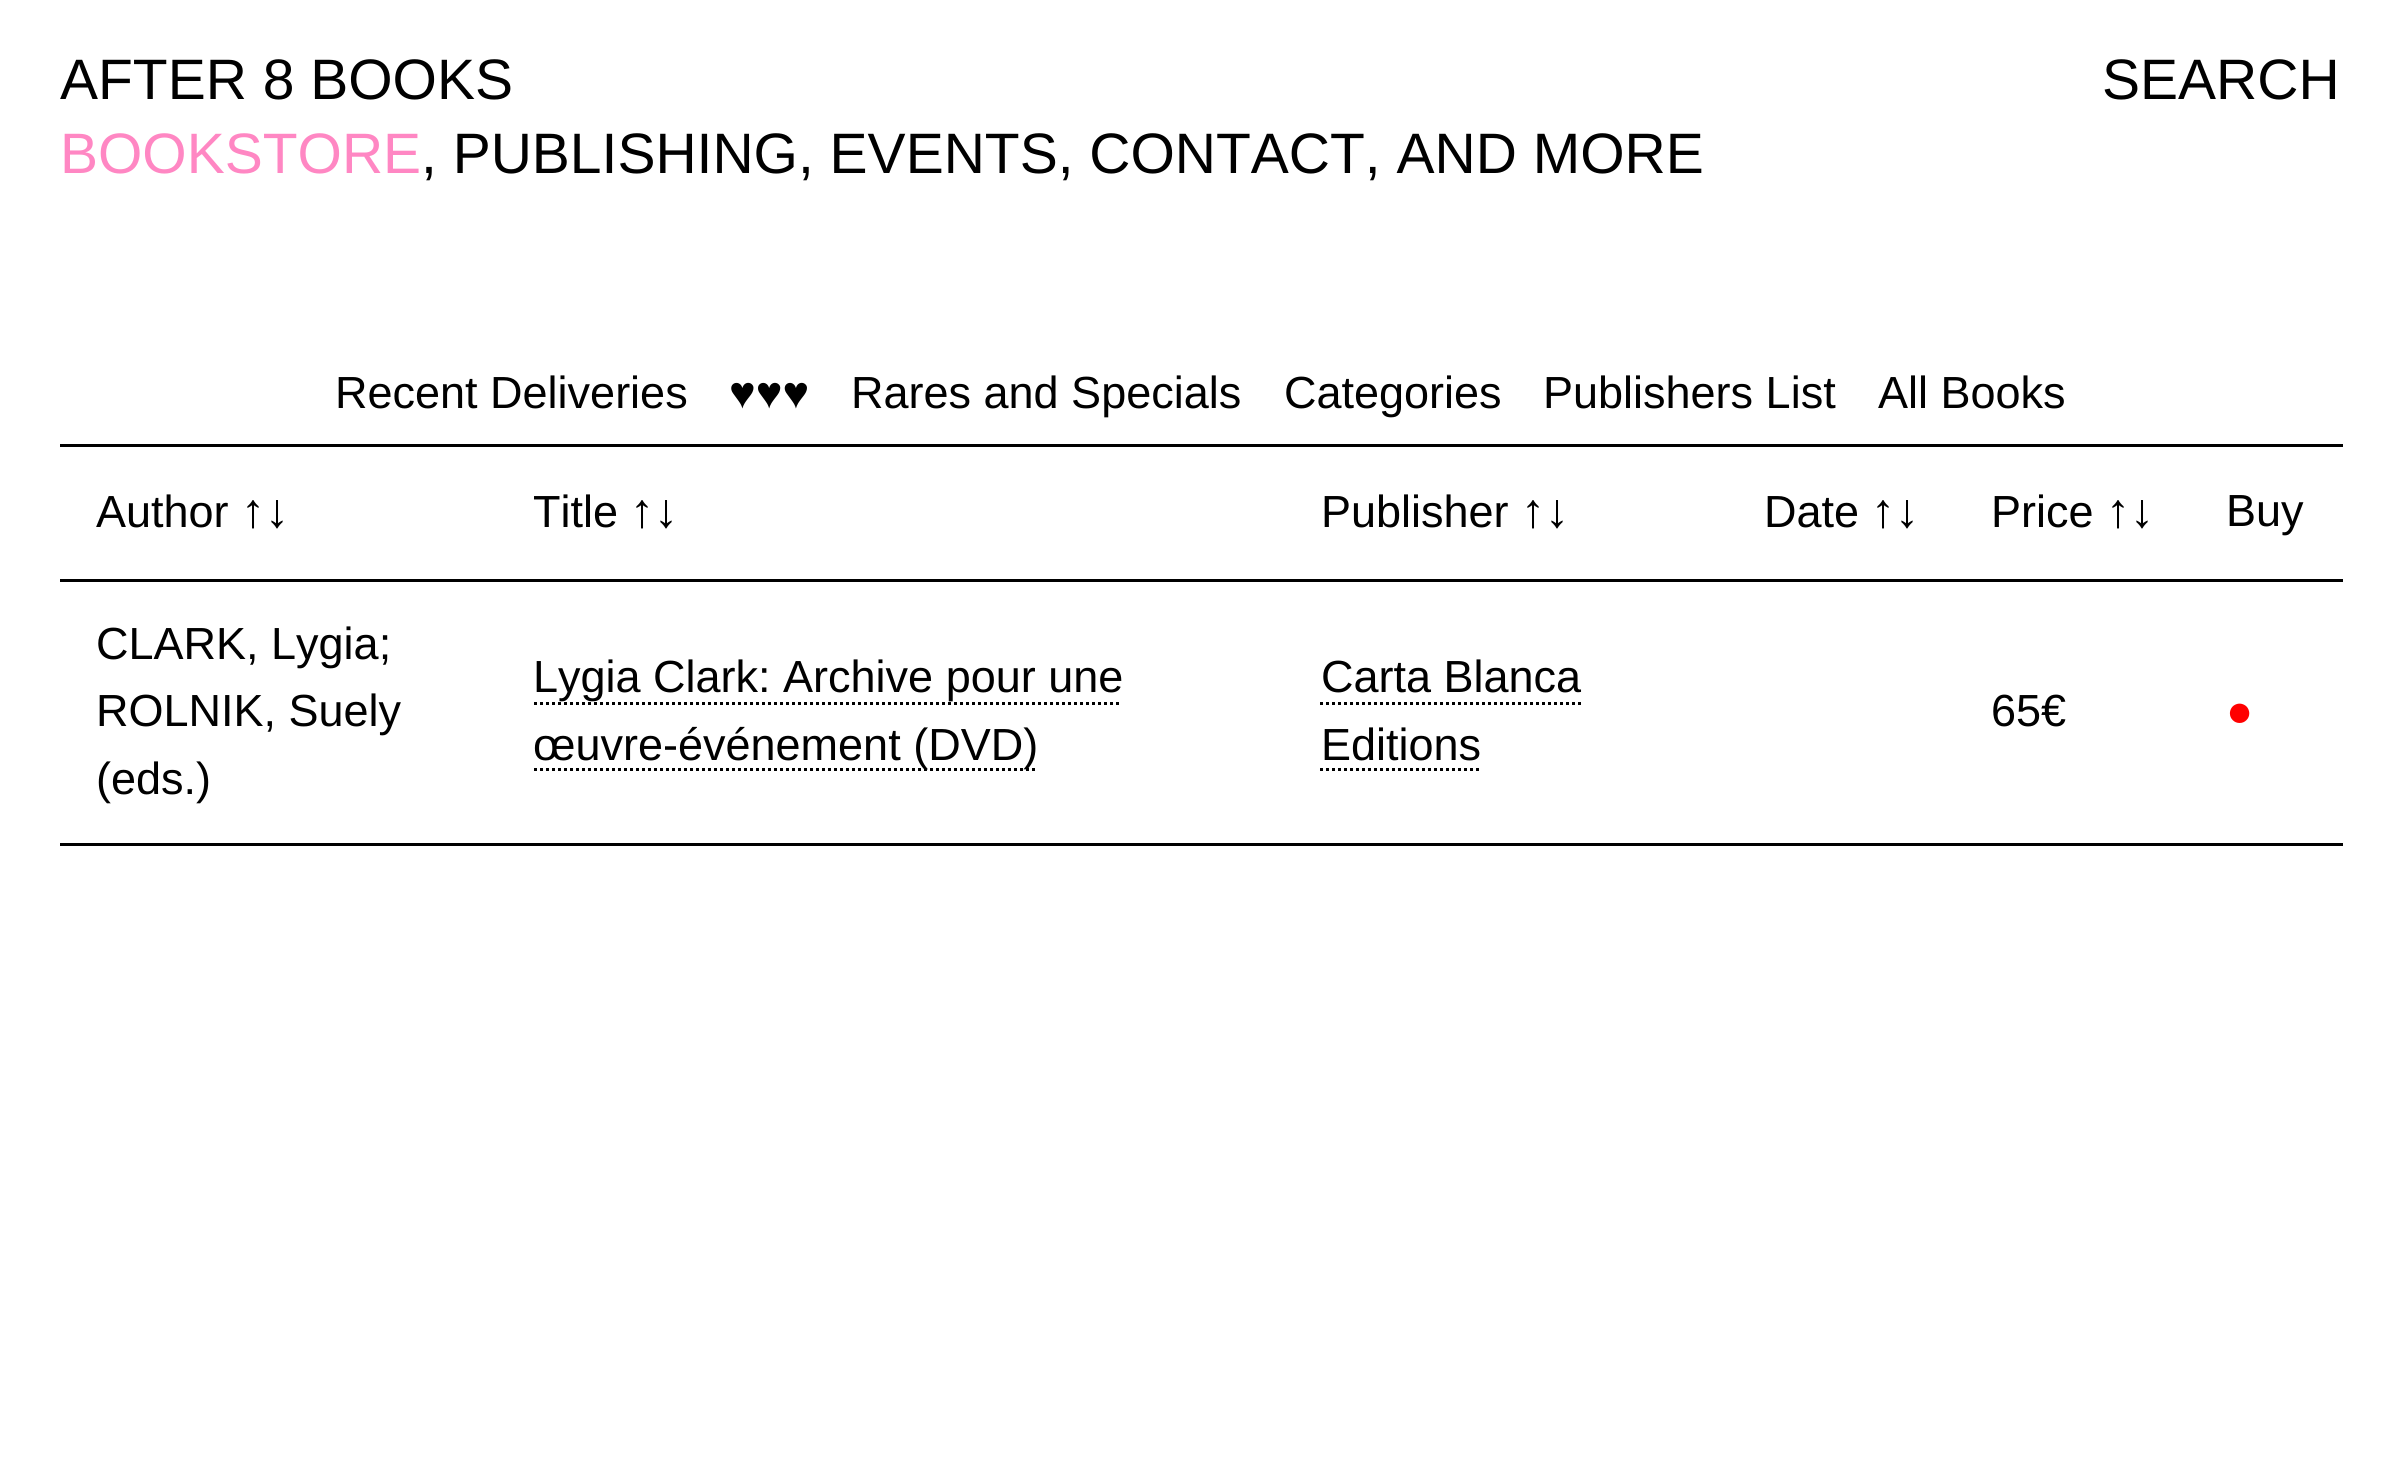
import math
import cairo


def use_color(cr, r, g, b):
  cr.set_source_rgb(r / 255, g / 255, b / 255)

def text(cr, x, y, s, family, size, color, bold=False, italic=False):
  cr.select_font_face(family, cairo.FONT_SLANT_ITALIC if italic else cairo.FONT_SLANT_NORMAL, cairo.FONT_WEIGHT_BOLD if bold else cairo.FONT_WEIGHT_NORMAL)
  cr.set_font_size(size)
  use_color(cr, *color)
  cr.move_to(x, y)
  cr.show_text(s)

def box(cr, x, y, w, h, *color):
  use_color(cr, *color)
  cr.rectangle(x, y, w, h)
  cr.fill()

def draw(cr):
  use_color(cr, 255, 255, 255)
  cr.paint()
  box(cr, 60, 444, 2283, 3, 0, 0, 0)
  cr.new_path()
  cr.move_to(534, 703.5)
  cr.line_to(1122, 703.5)
  cr.set_line_width(3)
  cr.set_dash([3, 3])
  cr.stroke()
  cr.new_path()
  cr.move_to(534, 769.5)
  cr.line_to(1038, 769.5)
  cr.stroke()
  cr.new_path()
  cr.move_to(1320, 703.5)
  cr.line_to(1581, 703.5)
  cr.stroke()
  cr.new_path()
  cr.move_to(1320, 769.5)
  cr.line_to(1482, 769.5)
  cr.stroke()
  box(cr, 60, 579, 2283, 3, 0, 0, 0)
  box(cr, 60, 843, 2283, 3, 0, 0, 0)
  text(cr, 60, 99, "AFTER 8 BOOKS", "Liberation Sans", 57, (0, 0, 0))
  text(cr, 2102, 99, "SEARCH", "Liberation Sans", 57, (0, 0, 0))
  text(cr, 60, 173, "BOOKSTORE", "Liberation Sans", 57, (255, 135, 195))
  text(cr, 421, 173, ", PUBLISHING, EVENTS, CONTACT, AND MORE", "Liberation Sans", 57, (0, 0, 0))
  text(cr, 335, 408, "Recent Deliveries", "Liberation Sans", 45, (0, 0, 0))
  text(cr, 729, 408, "♥♥♥", "Liberation Sans", 45, (0, 0, 0))
  text(cr, 851, 408, "Rares and Specials", "Liberation Sans", 45, (0, 0, 0))
  text(cr, 1284, 408, "Categories", "Liberation Sans", 45, (0, 0, 0))
  text(cr, 1543, 408, "Publishers List", "Liberation Sans", 45, (0, 0, 0))
  text(cr, 1878, 408, "All Books", "Liberation Sans", 45, (0, 0, 0))
  text(cr, 96, 527, "Author", "Liberation Sans", 45, (0, 0, 0))
  text(cr, 241, 527, "↑↓", "Liberation Sans", 48, (0, 0, 0))
  text(cr, 533, 527, "Title", "Liberation Sans", 45, (0, 0, 0))
  text(cr, 630, 527, "↑↓", "Liberation Sans", 48, (0, 0, 0))
  text(cr, 1321, 527, "Publisher", "Liberation Sans", 45, (0, 0, 0))
  text(cr, 1521, 527, "↑↓", "Liberation Sans", 48, (0, 0, 0))
  text(cr, 1764, 527, "Date", "Liberation Sans", 45, (0, 0, 0))
  text(cr, 1871, 527, "↑↓", "Liberation Sans", 48, (0, 0, 0))
  text(cr, 1991, 527, "Price", "Liberation Sans", 45, (0, 0, 0))
  text(cr, 2106, 527, "↑↓", "Liberation Sans", 48, (0, 0, 0))
  text(cr, 2226, 526, "Buy", "Liberation Sans", 45, (0, 0, 0))
  text(cr, 96, 659, "CLARK, Lygia;", "Liberation Sans", 45, (0, 0, 0))
  text(cr, 96, 726, "ROLNIK, Suely", "Liberation Sans", 45, (0, 0, 0))
  text(cr, 96, 794, "(eds.)", "Liberation Sans", 45, (0, 0, 0))
  text(cr, 533, 692, "Lygia Clark: Archive pour une", "Liberation Sans", 45, (0, 0, 0))
  text(cr, 533, 760, "œuvre-événement (DVD)", "Liberation Sans", 45, (0, 0, 0))
  text(cr, 1321, 692, "Carta Blanca", "Liberation Sans", 45, (0, 0, 0))
  text(cr, 1321, 760, "Editions", "Liberation Sans", 45, (0, 0, 0))
  text(cr, 1991, 726, "65€", "Liberation Sans", 45, (0, 0, 0))
  text(cr, 2226, 726, "●", "Liberation Sans", 45, (255, 0, 0))


surface = cairo.ImageSurface(cairo.FORMAT_RGB24, 2400, 1464)
cr = cairo.Context(surface)
options = cairo.FontOptions()
options.set_hint_metrics(cairo.HINT_METRICS_OFF)
options.set_hint_style(cairo.HINT_STYLE_NONE)
cr.set_font_options(options)
cr.set_miter_limit(4)
draw(cr)
surface.write_to_png("out.png")
